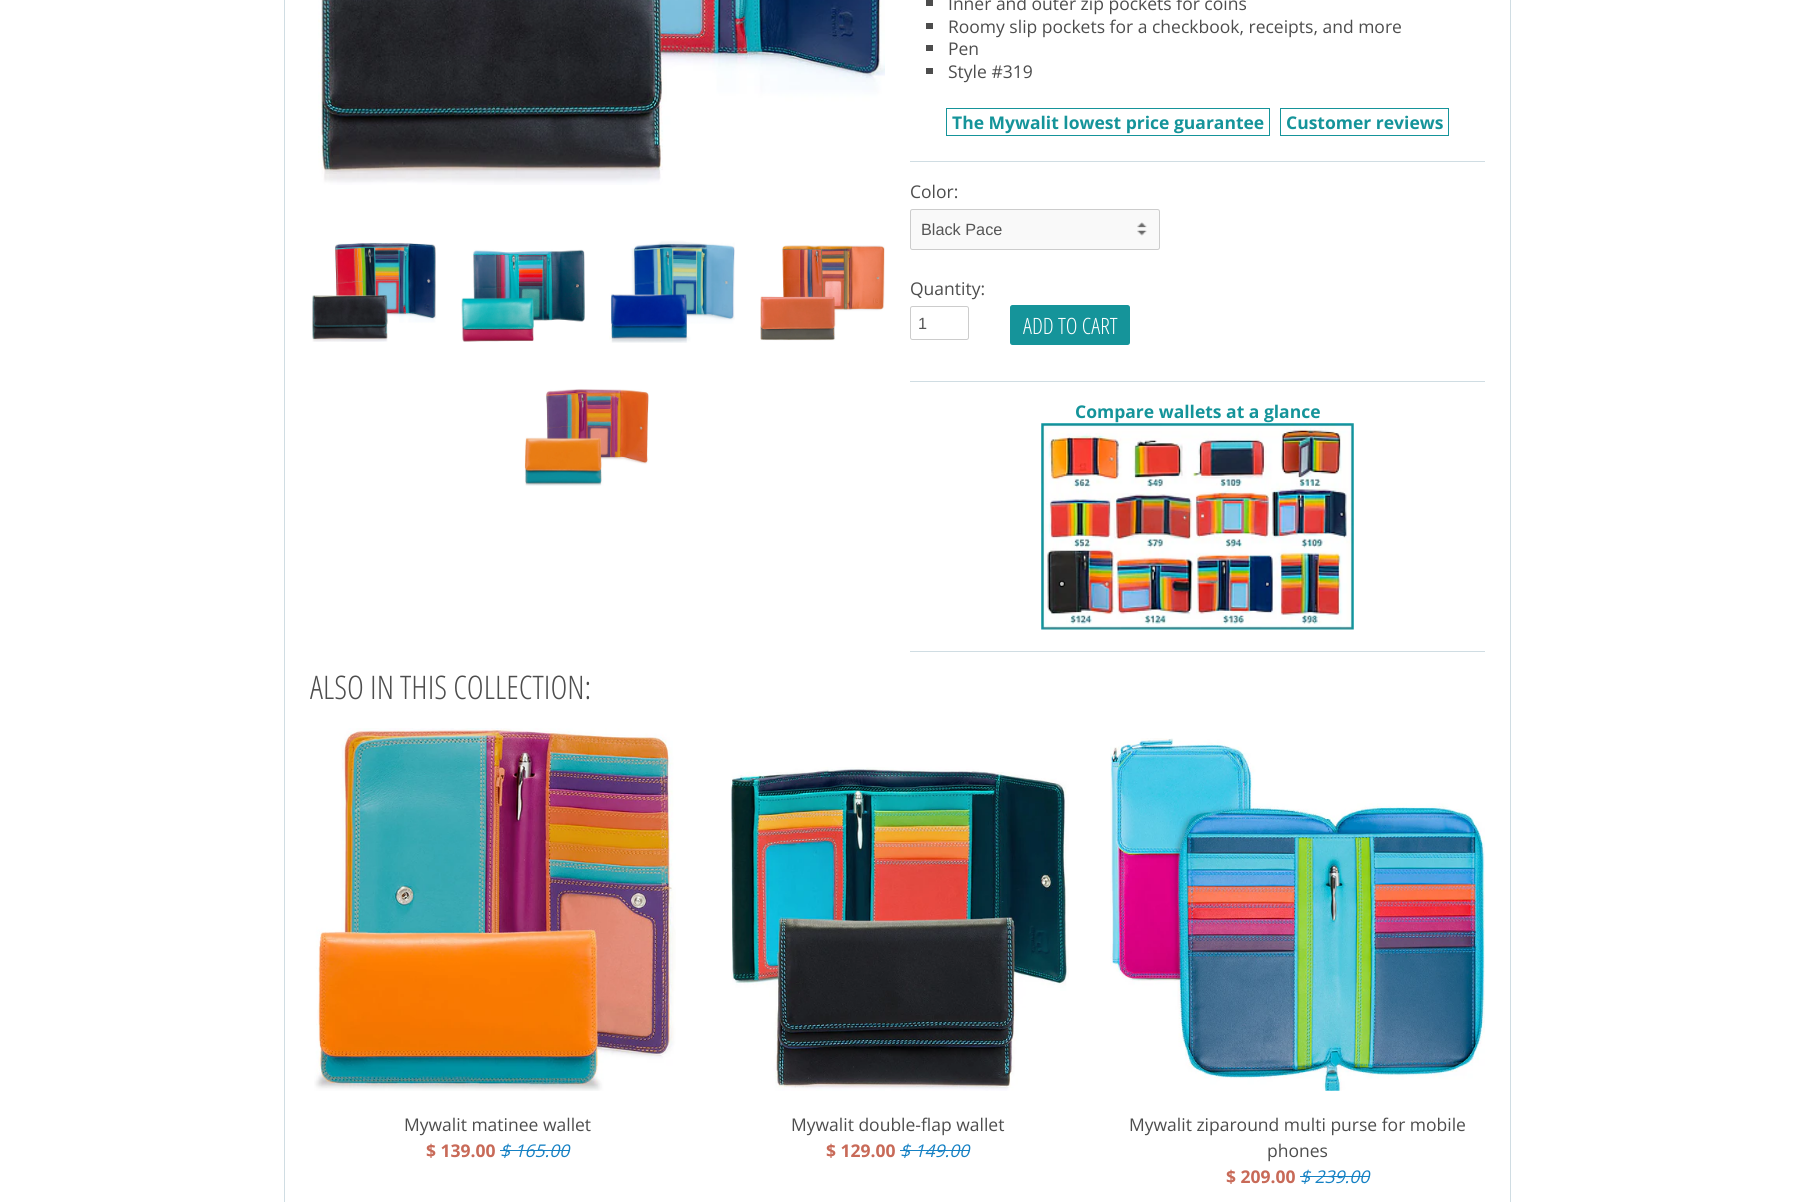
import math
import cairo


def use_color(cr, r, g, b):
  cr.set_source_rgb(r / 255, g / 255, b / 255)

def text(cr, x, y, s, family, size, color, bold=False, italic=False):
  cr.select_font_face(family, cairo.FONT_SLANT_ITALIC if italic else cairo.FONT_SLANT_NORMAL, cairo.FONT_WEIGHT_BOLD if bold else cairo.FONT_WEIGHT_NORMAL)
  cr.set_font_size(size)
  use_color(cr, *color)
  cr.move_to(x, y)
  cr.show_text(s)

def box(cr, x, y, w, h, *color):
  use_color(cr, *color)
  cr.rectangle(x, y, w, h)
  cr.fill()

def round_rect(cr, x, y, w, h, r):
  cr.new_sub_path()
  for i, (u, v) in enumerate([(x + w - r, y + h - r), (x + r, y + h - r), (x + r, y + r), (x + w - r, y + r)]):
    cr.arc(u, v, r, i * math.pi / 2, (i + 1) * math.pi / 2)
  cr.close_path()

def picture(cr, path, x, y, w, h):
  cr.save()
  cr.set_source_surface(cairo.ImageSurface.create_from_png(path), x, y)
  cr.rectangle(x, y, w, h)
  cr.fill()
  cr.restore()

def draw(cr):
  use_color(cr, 255, 255, 255)
  cr.paint()
  box(cr, 1510, 0, 1, 1202, 208, 221, 227)
  box(cr, 284, 0, 1, 1202, 208, 221, 227)
  picture(cr, "img_01.png", 318, 0, 567, 185)
  picture(cr, "img_02.png", 312, 243, 125, 99)
  picture(cr, "img_03.png", 461, 249, 124, 93)
  picture(cr, "img_04.png", 609, 240, 126, 103)
  picture(cr, "img_05.png", 760, 245, 125, 96)
  picture(cr, "img_06.png", 524, 389, 125, 97)
  box(cr, 926, 0, 7, 6, 77, 77, 77)
  box(cr, 926, 23, 7, 6, 77, 77, 77)
  box(cr, 926, 45, 7, 6, 77, 77, 77)
  box(cr, 926, 68, 7, 6, 77, 77, 77)
  cr.rectangle(946.5, 108.5, 323, 27)
  use_color(cr, 21, 148, 154)
  cr.set_line_width(1)
  cr.stroke()
  cr.rectangle(1280.5, 108.5, 168, 27)
  cr.stroke()
  box(cr, 910, 161, 575, 1, 208, 221, 227)
  use_color(cr, 249, 249, 249)
  round_rect(cr, 910, 209, 250, 41, 2.5)
  cr.fill()
  picture(cr, "img_07.png", 1137, 222, 10, 14)
  round_rect(cr, 910.5, 209.5, 249, 40, 2)
  use_color(cr, 204, 204, 204)
  cr.stroke()
  round_rect(cr, 910.5, 306.5, 58, 33, 2)
  cr.stroke()
  use_color(cr, 21, 148, 154)
  round_rect(cr, 1010, 305, 120, 40, 2.5)
  cr.fill()
  box(cr, 910, 381, 575, 1, 208, 221, 227)
  picture(cr, "img_08.png", 1041, 423, 313, 207)
  box(cr, 910, 651, 575, 1, 208, 221, 227)
  picture(cr, "img_09.png", 314, 728, 362, 363)
  box(cr, 500, 1150, 69, 1, 20, 128, 195)
  picture(cr, "img_10.png", 730, 767, 339, 324)
  box(cr, 900, 1150, 69, 1, 20, 128, 195)
  picture(cr, "img_11.png", 1110, 738, 375, 353)
  box(cr, 1300, 1176, 69, 1, 20, 128, 195)
  text(cr, 948, 10, "Inner and outer zip pockets for coins", "Open Sans", 17.5, (77, 77, 77))
  text(cr, 948, 33, "Roomy slip pockets for a checkbook, receipts, and more", "Open Sans", 17.5, (77, 77, 77))
  text(cr, 948, 55, "Pen", "Open Sans", 17.5, (77, 77, 77))
  text(cr, 948, 78, "Style #319", "Open Sans", 17.5, (77, 77, 77))
  text(cr, 952, 129, "The Mywalit lowest price guarantee", "Open Sans", 17.5, (21, 148, 154), bold=True)
  text(cr, 1286, 129, "Customer reviews", "Open Sans", 17.5, (21, 148, 154), bold=True)
  text(cr, 910, 198, "Color:", "Open Sans", 17.5, (77, 77, 77))
  text(cr, 921, 235, "Black Pace", "Liberation Sans", 16.25, (85, 85, 85))
  text(cr, 910, 295, "Quantity:", "Open Sans", 17.5, (77, 77, 77))
  text(cr, 918, 329, "1", "Liberation Sans", 16.25, (85, 85, 85))
  text(cr, 1023, 334, "ADD TO CART", "Open Sans Condensed Light", 22.5, (255, 255, 255))
  text(cr, 1075, 418, "Compare wallets at a glance", "Open Sans", 17.5, (21, 148, 154), bold=True)
  text(cr, 310, 699, "ALSO IN THIS COLLECTION:", "Open Sans Condensed Light", 32.5, (77, 77, 77))
  text(cr, 404, 1131, "Mywalit matinee wallet", "Open Sans", 17.5, (77, 77, 77))
  text(cr, 426, 1157, "$ 139.00", "Open Sans", 17.5, (200, 106, 88), bold=True)
  text(cr, 500, 1157, "$ 165.00", "Open Sans", 17.5, (20, 128, 195), italic=True)
  text(cr, 791, 1131, "Mywalit double-flap wallet", "Open Sans", 17.5, (77, 77, 77))
  text(cr, 826, 1157, "$ 129.00", "Open Sans", 17.5, (200, 106, 88), bold=True)
  text(cr, 900, 1157, "$ 149.00", "Open Sans", 17.5, (20, 128, 195), italic=True)
  text(cr, 1129, 1131, "Mywalit ziparound multi purse for mobile", "Open Sans", 17.5, (77, 77, 77))
  text(cr, 1267, 1157, "phones", "Open Sans", 17.5, (77, 77, 77))
  text(cr, 1226, 1183, "$ 209.00", "Open Sans", 17.5, (200, 106, 88), bold=True)
  text(cr, 1300, 1183, "$ 239.00", "Open Sans", 17.5, (20, 128, 195), italic=True)


surface = cairo.ImageSurface(cairo.FORMAT_RGB24, 1795, 1202)
cr = cairo.Context(surface)
options = cairo.FontOptions()
options.set_hint_metrics(cairo.HINT_METRICS_OFF)
options.set_hint_style(cairo.HINT_STYLE_NONE)
cr.set_font_options(options)
cr.set_miter_limit(4)
draw(cr)
surface.write_to_png("out.png")
